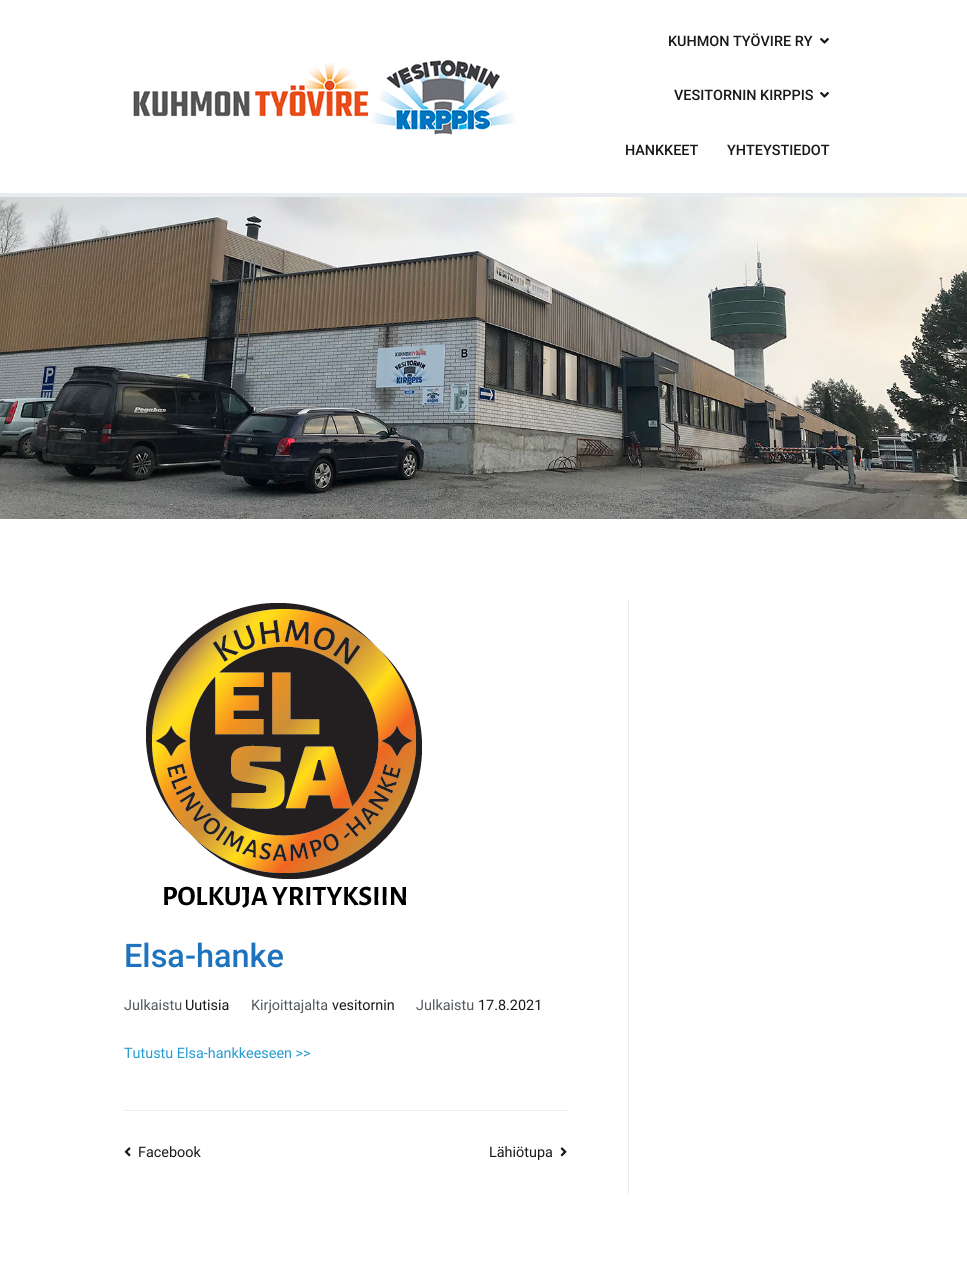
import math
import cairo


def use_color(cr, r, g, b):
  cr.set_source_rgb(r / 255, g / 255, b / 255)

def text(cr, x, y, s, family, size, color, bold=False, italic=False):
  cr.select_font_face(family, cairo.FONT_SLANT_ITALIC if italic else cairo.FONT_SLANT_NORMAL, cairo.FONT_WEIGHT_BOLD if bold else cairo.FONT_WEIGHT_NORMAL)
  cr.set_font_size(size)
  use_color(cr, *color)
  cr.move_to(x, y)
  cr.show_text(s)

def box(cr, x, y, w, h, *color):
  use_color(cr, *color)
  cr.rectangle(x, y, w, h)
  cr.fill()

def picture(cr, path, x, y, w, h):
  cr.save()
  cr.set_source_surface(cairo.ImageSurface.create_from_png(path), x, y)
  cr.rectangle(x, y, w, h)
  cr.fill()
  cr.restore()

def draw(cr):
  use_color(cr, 255, 255, 255)
  cr.paint()
  box(cr, 0, 193, 967, 4, 233, 236, 239)
  picture(cr, "img_01.png", 133, 57, 383, 78)
  picture(cr, "img_02.png", 820, 38, 9, 6)
  picture(cr, "img_02.png", 820, 92, 9, 6)
  picture(cr, "img_03.png", 0, 197, 967, 322)
  picture(cr, "img_04.png", 146, 603, 276, 305)
  box(cr, 124, 1110, 444, 1, 233, 236, 239)
  picture(cr, "img_05.png", 124, 1147, 7, 10)
  picture(cr, "img_06.png", 560, 1147, 7, 10)
  box(cr, 628, 599, 1, 596, 233, 236, 239)
  text(cr, 668, 46, "KUHMON TYÖVIRE RY", "Roboto Medium", 14.4, (22, 24, 26))
  text(cr, 674, 100, "VESITORNIN KIRPPIS", "Roboto Medium", 14.4, (22, 24, 26))
  text(cr, 625, 155, "HANKKEET", "Roboto Medium", 14.4, (22, 24, 26))
  text(cr, 727, 155, "YHTEYSTIEDOT", "Roboto Medium", 14.4, (22, 24, 26))
  text(cr, 124, 967, "Elsa-hanke", "Roboto Medium", 32.5, (30, 115, 190))
  text(cr, 124, 1010, "Julkaistu", "Roboto", 14.4, (81, 88, 95))
  text(cr, 185, 1010, "Uutisia", "Roboto", 14.4, (22, 24, 26))
  text(cr, 251, 1010, "Kirjoittajalta", "Roboto", 14.4, (81, 88, 95))
  text(cr, 332, 1010, "vesitornin", "Roboto", 14.4, (22, 24, 26))
  text(cr, 416, 1010, "Julkaistu", "Roboto", 14.4, (81, 88, 95))
  text(cr, 478, 1010, "17.8.2021", "Roboto", 14.4, (22, 24, 26))
  text(cr, 124, 1058, "Tutustu Elsa-hankkeeseen >>", "Roboto", 14.4, (38, 155, 209))
  text(cr, 138, 1157, "Facebook", "Roboto", 14.4, (22, 24, 26))
  text(cr, 489, 1157, "Lähiötupa", "Roboto", 14.4, (22, 24, 26))


surface = cairo.ImageSurface(cairo.FORMAT_RGB24, 967, 1262)
cr = cairo.Context(surface)
options = cairo.FontOptions()
options.set_hint_metrics(cairo.HINT_METRICS_OFF)
options.set_hint_style(cairo.HINT_STYLE_NONE)
cr.set_font_options(options)
cr.set_miter_limit(4)
draw(cr)
surface.write_to_png("out.png")
